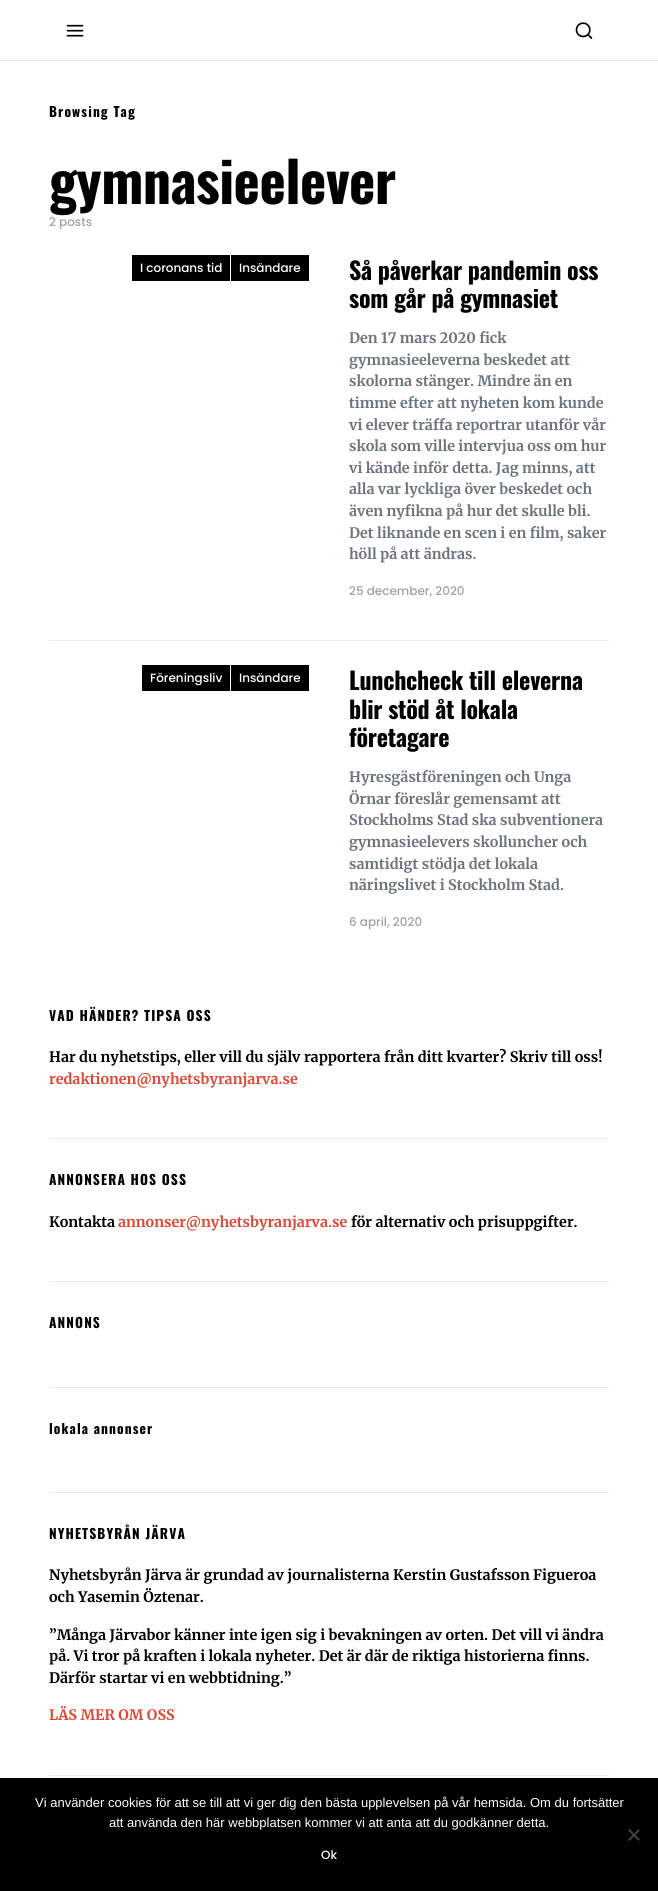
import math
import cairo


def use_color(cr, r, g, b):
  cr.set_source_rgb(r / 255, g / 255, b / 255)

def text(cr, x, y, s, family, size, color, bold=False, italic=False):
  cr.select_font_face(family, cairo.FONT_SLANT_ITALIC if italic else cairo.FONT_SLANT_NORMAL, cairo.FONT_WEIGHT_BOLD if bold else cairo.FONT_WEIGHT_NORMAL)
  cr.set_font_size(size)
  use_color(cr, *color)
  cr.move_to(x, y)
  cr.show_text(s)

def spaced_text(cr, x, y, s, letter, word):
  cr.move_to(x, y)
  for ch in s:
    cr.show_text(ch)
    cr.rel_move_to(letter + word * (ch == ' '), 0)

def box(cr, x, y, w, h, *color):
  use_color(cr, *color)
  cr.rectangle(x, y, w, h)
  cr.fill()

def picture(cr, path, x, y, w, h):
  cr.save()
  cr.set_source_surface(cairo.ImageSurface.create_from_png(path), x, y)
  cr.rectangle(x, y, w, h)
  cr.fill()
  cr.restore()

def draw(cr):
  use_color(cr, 255, 255, 255)
  cr.paint()
  box(cr, 0, 60, 658, 1, 233, 236, 239)
  picture(cr, "img_01.png", 66, 24, 18, 13)
  picture(cr, "img_02.png", 575, 22, 18, 17)
  box(cr, 132, 255, 98, 26, 0, 0, 0)
  box(cr, 231, 255, 78, 26, 0, 0, 0)
  box(cr, 49, 640, 560, 1, 233, 236, 239)
  box(cr, 142, 665, 88, 26, 0, 0, 0)
  box(cr, 231, 665, 78, 26, 0, 0, 0)
  box(cr, 49, 1138, 560, 1, 233, 236, 239)
  box(cr, 49, 1281, 560, 1, 233, 236, 239)
  box(cr, 49, 1387, 560, 1, 233, 236, 239)
  box(cr, 49, 1492, 560, 1, 233, 236, 239)
  box(cr, 49, 1775, 560, 1, 233, 236, 239)
  box(cr, 0, 1778, 658, 113, 0, 0, 0)
  use_color(cr, 64, 64, 64)
  cr.new_path()
  cr.move_to(638.5, 1829)
  cr.line_to(640, 1830.5)
  cr.line_to(629.5, 1841)
  cr.line_to(628, 1839.5)
  cr.close_path()
  cr.fill()
  cr.new_path()
  cr.move_to(628, 1830.5)
  cr.line_to(629.5, 1829)
  cr.line_to(640, 1839.5)
  cr.line_to(638.5, 1841)
  cr.close_path()
  cr.fill()
  cr.select_font_face("Oswald", cairo.FONT_SLANT_NORMAL, cairo.FONT_WEIGHT_BOLD)
  cr.set_font_size(13.6)
  use_color(cr, 0, 0, 0)
  spaced_text(cr, 49, 117, "Browsing Tag", 1.1, 0)
  cr.set_font_size(56)
  spaced_text(cr, 49, 204, "gymnasieelever", -0.5, 0)
  text(cr, 49, 226, "2 posts", "Poppins Medium", 12, (160, 160, 160))
  text(cr, 140, 272, "I coronans tid", "Poppins Medium", 12, (255, 255, 255))
  text(cr, 239, 272, "Insändare", "Poppins Medium", 12, (255, 255, 255))
  cr.select_font_face("Oswald", cairo.FONT_SLANT_NORMAL, cairo.FONT_WEIGHT_BOLD)
  cr.set_font_size(24)
  use_color(cr, 0, 0, 0)
  spaced_text(cr, 349, 280, "Så påverkar pandemin oss", -0.25, 0)
  spaced_text(cr, 349, 308, "som går på gymnasiet", -0.25, 0)
  text(cr, 349, 343, "Den 17 mars 2020 fick", "Merriweather", 14.4, (108, 117, 125), bold=True)
  text(cr, 349, 365, "gymnasieeleverna beskedet att", "Merriweather", 14.4, (108, 117, 125), bold=True)
  text(cr, 349, 386, "skolorna stänger. Mindre än en", "Merriweather", 14.4, (108, 117, 125), bold=True)
  text(cr, 349, 408, "timme efter att nyheten kom kunde", "Merriweather", 14.4, (108, 117, 125), bold=True)
  text(cr, 349, 430, "vi elever träffa reportrar utanför vår", "Merriweather", 14.4, (108, 117, 125), bold=True)
  text(cr, 349, 451, "skola som ville intervjua oss om hur", "Merriweather", 14.4, (108, 117, 125), bold=True)
  text(cr, 349, 473, "vi kände inför detta. Jag minns, att", "Merriweather", 14.4, (108, 117, 125), bold=True)
  text(cr, 349, 494, "alla var lyckliga över beskedet och", "Merriweather", 14.4, (108, 117, 125), bold=True)
  text(cr, 349, 516, "även nyfikna på hur det skulle bli.", "Merriweather", 14.4, (108, 117, 125), bold=True)
  text(cr, 349, 538, "Det liknande en scen i en film, saker", "Merriweather", 14.4, (108, 117, 125), bold=True)
  text(cr, 349, 559, "höll på att ändras.", "Merriweather", 14.4, (108, 117, 125), bold=True)
  text(cr, 349, 595, "25 december, 2020", "Poppins Medium", 12, (160, 160, 160))
  text(cr, 150, 682, "Föreningsliv", "Poppins Medium", 12, (255, 255, 255))
  text(cr, 239, 682, "Insändare", "Poppins Medium", 12, (255, 255, 255))
  cr.select_font_face("Oswald", cairo.FONT_SLANT_NORMAL, cairo.FONT_WEIGHT_BOLD)
  cr.set_font_size(24)
  use_color(cr, 0, 0, 0)
  spaced_text(cr, 349, 690, "Lunchcheck till eleverna", -0.25, 0)
  spaced_text(cr, 349, 719, "blir stöd åt lokala", -0.25, 0)
  spaced_text(cr, 349, 747, "företagare", -0.25, 0)
  text(cr, 349, 782, "Hyresgästföreningen och Unga", "Merriweather", 14.4, (108, 117, 125), bold=True)
  text(cr, 349, 804, "Örnar föreslår gemensamt att", "Merriweather", 14.4, (108, 117, 125), bold=True)
  text(cr, 349, 825, "Stockholms Stad ska subventionera", "Merriweather", 14.4, (108, 117, 125), bold=True)
  text(cr, 349, 847, "gymnasieelevers skolluncher och", "Merriweather", 14.4, (108, 117, 125), bold=True)
  text(cr, 349, 869, "samtidigt stödja det lokala", "Merriweather", 14.4, (108, 117, 125), bold=True)
  text(cr, 349, 890, "näringslivet i Stockholm Stad.", "Merriweather", 14.4, (108, 117, 125), bold=True)
  text(cr, 349, 926, "6 april, 2020", "Poppins Medium", 12, (160, 160, 160))
  cr.select_font_face("Oswald", cairo.FONT_SLANT_NORMAL, cairo.FONT_WEIGHT_BOLD)
  cr.set_font_size(13.6)
  use_color(cr, 0, 0, 0)
  spaced_text(cr, 49, 1021, "VAD HÄNDER? TIPSA OSS", 1.1, 0)
  text(cr, 49, 1062, "Har du nyhetstips, eller vill du själv rapportera från ditt kvarter? Skriv till oss!", "Merriweather", 14.4, (0, 0, 0), bold=True)
  text(cr, 49, 1084, "redaktionen@nyhetsbyranjarva.se", "Merriweather", 14.4, (219, 74, 55), bold=True)
  cr.select_font_face("Oswald", cairo.FONT_SLANT_NORMAL, cairo.FONT_WEIGHT_BOLD)
  cr.set_font_size(13.6)
  use_color(cr, 0, 0, 0)
  spaced_text(cr, 49, 1185, "ANNONSERA HOS OSS", 1.1, 0)
  text(cr, 49, 1227, "Kontakta", "Merriweather", 14.4, (0, 0, 0), bold=True)
  text(cr, 118, 1227, "annonser@nyhetsbyranjarva.se", "Merriweather", 14.4, (219, 74, 55), bold=True)
  text(cr, 351, 1227, "för alternativ och prisuppgifter.", "Merriweather", 14.4, (0, 0, 0), bold=True)
  cr.select_font_face("Oswald", cairo.FONT_SLANT_NORMAL, cairo.FONT_WEIGHT_BOLD)
  cr.set_font_size(13.6)
  spaced_text(cr, 49, 1328, "ANNONS", 1.1, 0)
  spaced_text(cr, 49, 1434, "lokala annonser", 1.1, 0)
  spaced_text(cr, 49, 1539, "NYHETSBYRÅN JÄRVA", 1.1, 0)
  text(cr, 49, 1580, "Nyhetsbyrån Järva är grundad av journalisterna Kerstin Gustafsson Figueroa", "Merriweather", 14.4, (0, 0, 0), bold=True)
  text(cr, 49, 1602, "och Yasemin Öztenar.", "Merriweather", 14.4, (0, 0, 0), bold=True)
  text(cr, 49, 1640, "”Många Järvabor känner inte igen sig i bevakningen av orten. Det vill vi ändra", "Merriweather", 14.4, (0, 0, 0), bold=True)
  text(cr, 49, 1661, "på. Vi tror på kraften i lokala nyheter. Det är där de riktiga historierna finns.", "Merriweather", 14.4, (0, 0, 0), bold=True)
  text(cr, 49, 1683, "Därför startar vi en webbtidning.”", "Merriweather", 14.4, (0, 0, 0), bold=True)
  text(cr, 49, 1720, "LÄS MER OM OSS", "Merriweather", 14.4, (219, 74, 55), bold=True)
  text(cr, 35, 1807, "Vi använder cookies för att se till att vi ger dig den bästa upplevelsen på vår hemsida. Om du fortsätter", "Liberation Sans", 13, (255, 255, 255))
  text(cr, 109, 1827, "att använda den här webbplatsen kommer vi att anta att du godkänner detta.", "Liberation Sans", 13, (255, 255, 255))
  text(cr, 321, 1859, "Ok", "Poppins Medium", 12, (255, 255, 255))


surface = cairo.ImageSurface(cairo.FORMAT_RGB24, 658, 1891)
cr = cairo.Context(surface)
options = cairo.FontOptions()
options.set_hint_metrics(cairo.HINT_METRICS_OFF)
options.set_hint_style(cairo.HINT_STYLE_NONE)
cr.set_font_options(options)
cr.set_miter_limit(4)
draw(cr)
surface.write_to_png("out.png")
